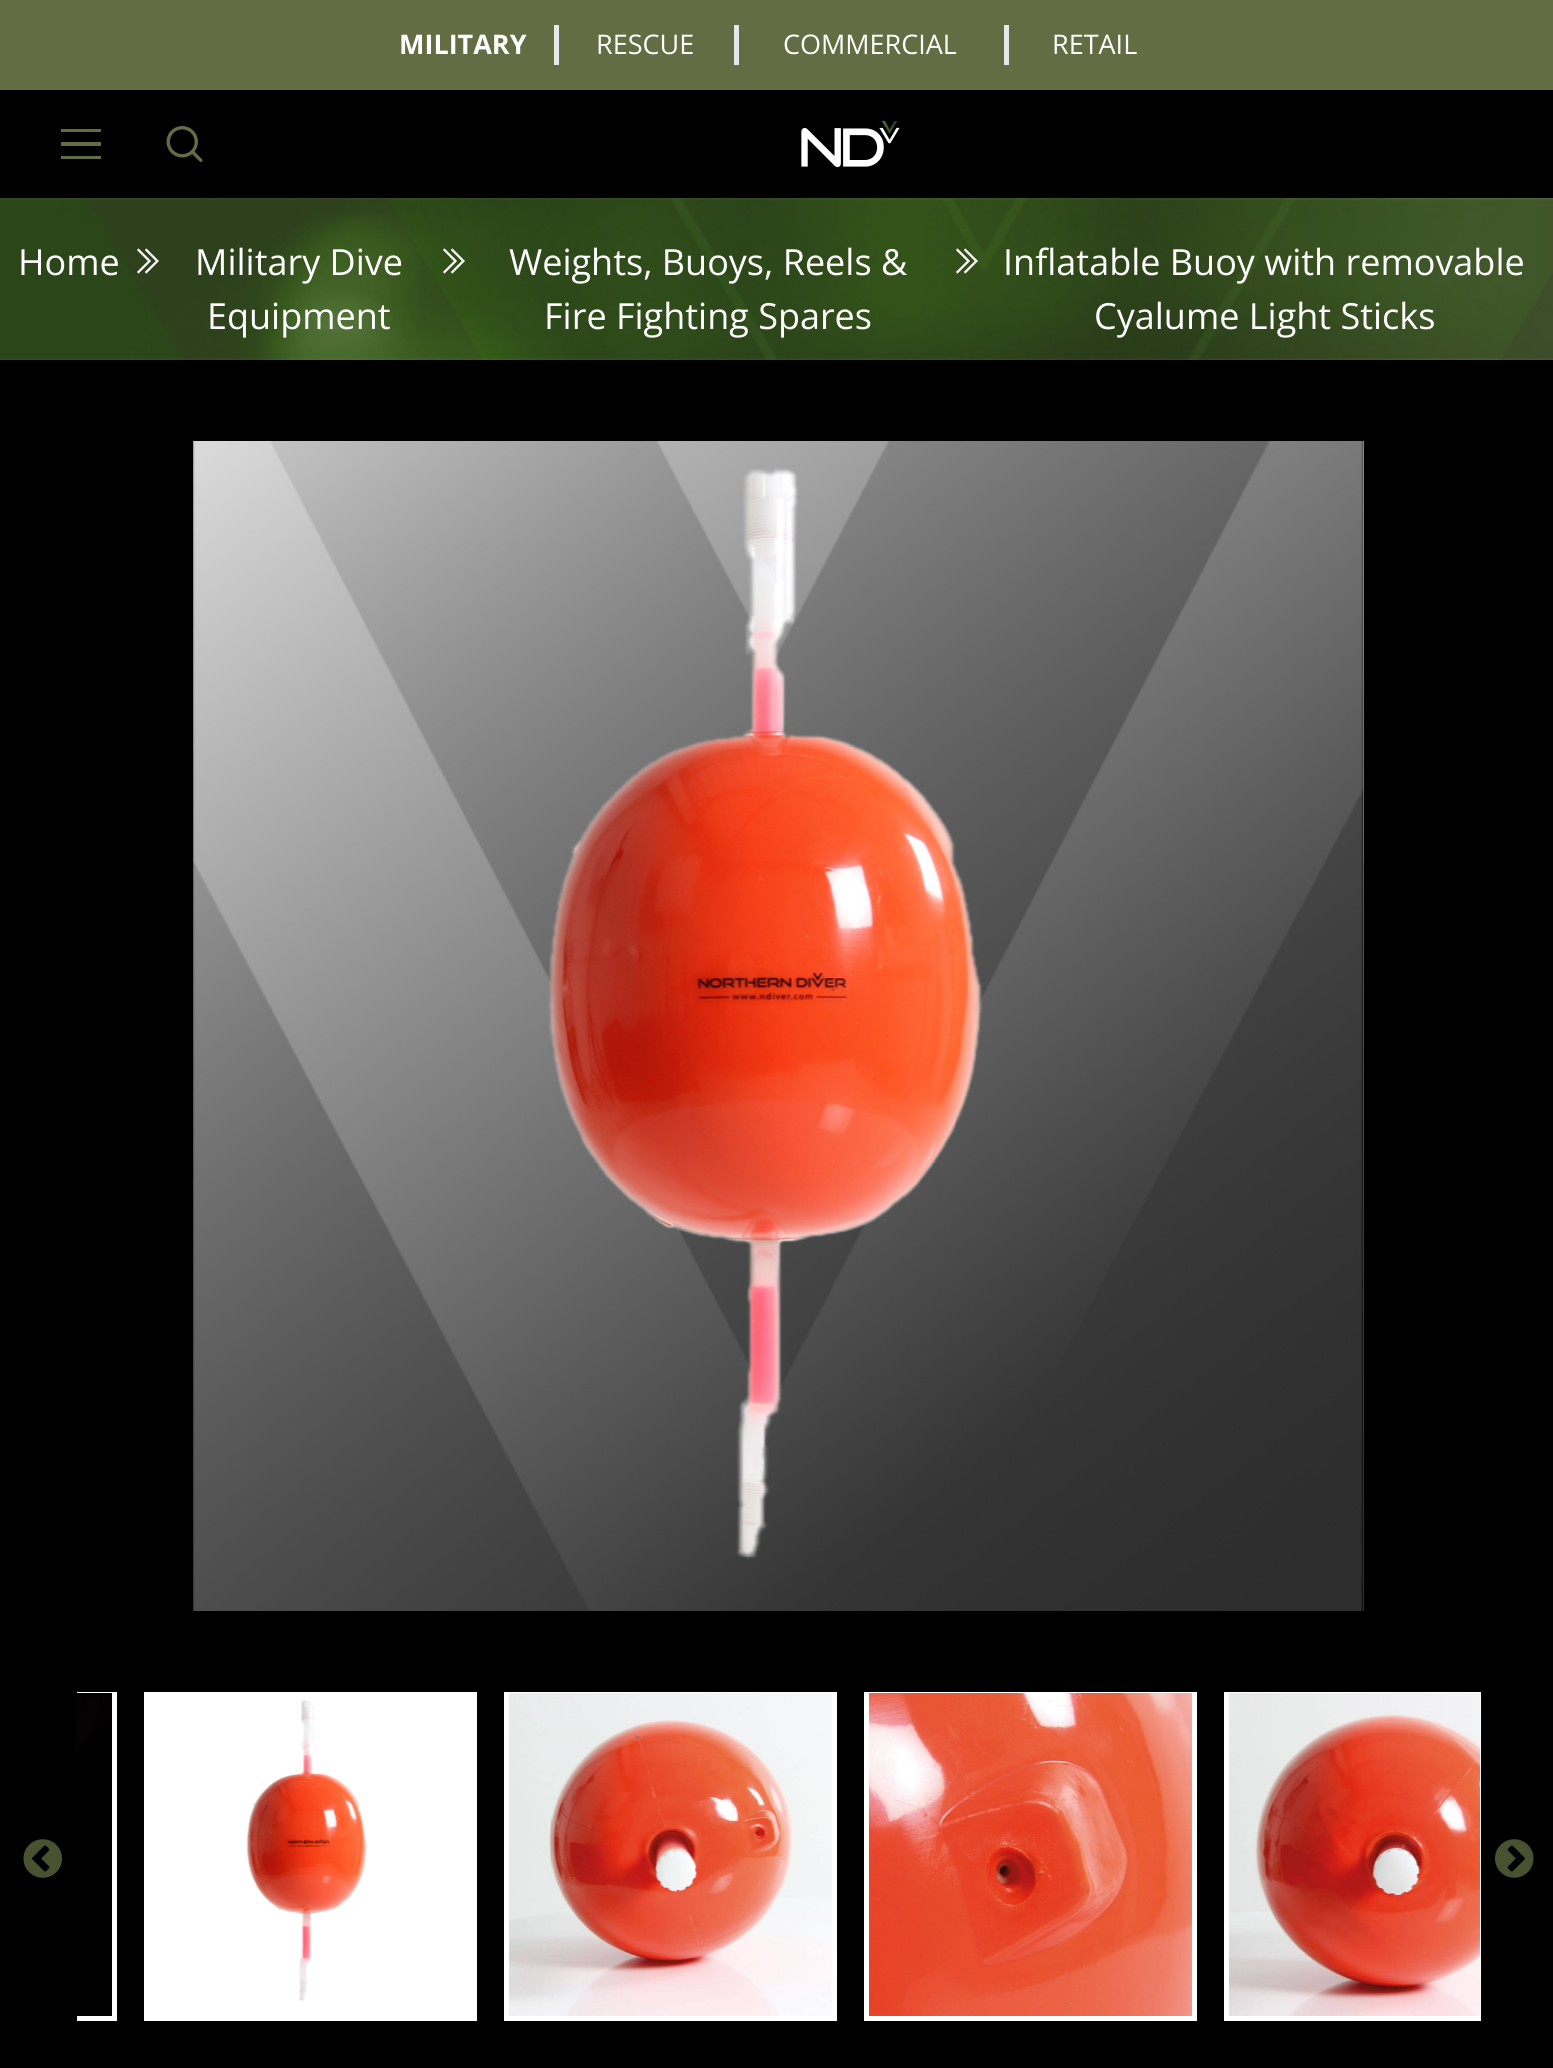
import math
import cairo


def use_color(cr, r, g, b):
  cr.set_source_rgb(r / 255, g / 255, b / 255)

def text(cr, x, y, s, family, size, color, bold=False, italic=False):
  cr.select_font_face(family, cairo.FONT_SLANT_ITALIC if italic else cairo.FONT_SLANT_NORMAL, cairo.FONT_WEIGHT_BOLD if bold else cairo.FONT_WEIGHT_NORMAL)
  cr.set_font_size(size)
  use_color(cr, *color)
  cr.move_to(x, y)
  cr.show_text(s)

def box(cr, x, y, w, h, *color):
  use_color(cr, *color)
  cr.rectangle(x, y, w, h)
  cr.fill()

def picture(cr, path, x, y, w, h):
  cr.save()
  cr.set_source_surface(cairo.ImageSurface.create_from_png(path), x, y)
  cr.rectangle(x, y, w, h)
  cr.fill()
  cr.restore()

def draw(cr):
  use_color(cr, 0, 0, 0)
  cr.paint()
  box(cr, 0, 0, 1553, 90, 99, 108, 66)
  box(cr, 554, 25, 5, 40, 229, 231, 235)
  box(cr, 734, 25, 5, 40, 229, 231, 235)
  box(cr, 1004, 25, 5, 40, 229, 231, 235)
  use_color(cr, 99, 108, 66)
  cr.new_path()
  cr.move_to(61, 129)
  cr.line_to(61, 132)
  cr.line_to(101, 132)
  cr.line_to(101, 129)
  cr.close_path()
  cr.move_to(61, 142)
  cr.line_to(61, 146)
  cr.line_to(101, 146)
  cr.line_to(101, 142)
  cr.close_path()
  cr.move_to(61, 156)
  cr.line_to(61, 159)
  cr.line_to(101, 159)
  cr.line_to(101, 156)
  cr.close_path()
  cr.fill()
  picture(cr, "img_01.png", 166, 126, 37, 36)
  picture(cr, "img_02.png", 801, 120, 99, 48)
  picture(cr, "img_03.png", 0, 198, 1553, 162)
  picture(cr, "img_04.png", 137, 248, 22, 26)
  picture(cr, "img_05.png", 443, 248, 22, 26)
  picture(cr, "img_06.png", 956, 248, 22, 26)
  picture(cr, "img_07.png", 193, 441, 1171, 1170)
  picture(cr, "img_08.png", 548, 468, 435, 1091)
  picture(cr, "img_09.png", 1363, 441, 1, 1170)
  picture(cr, "img_10.png", 76, 1692, 36, 324)
  picture(cr, "img_15.png", 23, 1839, 39, 39)
  cr.save()
  cr.rectangle(77, 1692, 1404, 338)
  cr.clip()
  cr.rectangle(-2.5, 1690.5, 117, 328)
  use_color(cr, 255, 255, 255)
  cr.set_line_width(5)
  cr.stroke()
  cr.restore()
  box(cr, 149, 1693, 323, 323, 255, 255, 255)
  picture(cr, "img_11.png", 246, 1700, 121, 301)
  cr.save()
  cr.rectangle(77, 1692, 1404, 338)
  cr.clip()
  cr.rectangle(146.5, 1690.5, 328, 328)
  cr.set_line_width(5)
  cr.stroke()
  cr.restore()
  picture(cr, "img_12.png", 509, 1693, 323, 323)
  cr.save()
  cr.rectangle(77, 1692, 1404, 338)
  cr.clip()
  cr.rectangle(506.5, 1690.5, 328, 328)
  cr.set_line_width(5)
  cr.stroke()
  cr.restore()
  picture(cr, "img_13.png", 869, 1693, 323, 323)
  cr.save()
  cr.rectangle(77, 1692, 1404, 338)
  cr.clip()
  cr.rectangle(866.5, 1690.5, 328, 328)
  cr.set_line_width(5)
  cr.stroke()
  cr.restore()
  box(cr, 1480, 1693, 1, 323, 255, 255, 255)
  picture(cr, "img_14.png", 1229, 1693, 251, 323)
  cr.save()
  cr.rectangle(77, 1692, 1404, 338)
  cr.clip()
  cr.rectangle(1226.5, 1690.5, 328, 328)
  cr.set_line_width(5)
  cr.stroke()
  cr.restore()
  picture(cr, "img_16.png", 1495, 1839, 39, 39)
  text(cr, 399, 54, "MILITARY", "Open Sans", 27, (255, 255, 255), bold=True)
  text(cr, 596, 54, "RESCUE", "Open Sans", 27, (255, 255, 255))
  text(cr, 783, 54, "COMMERCIAL", "Open Sans", 27, (255, 255, 255))
  text(cr, 1052, 54, "RETAIL", "Open Sans", 27, (255, 255, 255))
  text(cr, 18, 275, "Home", "Open Sans", 36, (255, 255, 255))
  text(cr, 195, 275, "Military Dive", "Open Sans", 36, (255, 255, 255))
  text(cr, 207, 329, "Equipment", "Open Sans", 36, (255, 255, 255))
  text(cr, 509, 275, "Weights, Buoys, Reels &", "Open Sans", 36, (255, 255, 255))
  text(cr, 544, 329, "Fire Fighting Spares", "Open Sans", 36, (255, 255, 255))
  text(cr, 1003, 275, "Inflatable Buoy with removable", "Open Sans", 36, (255, 255, 255))
  text(cr, 1094, 329, "Cyalume Light Sticks", "Open Sans", 36, (255, 255, 255))


surface = cairo.ImageSurface(cairo.FORMAT_RGB24, 1553, 2068)
cr = cairo.Context(surface)
options = cairo.FontOptions()
options.set_hint_metrics(cairo.HINT_METRICS_OFF)
options.set_hint_style(cairo.HINT_STYLE_NONE)
cr.set_font_options(options)
cr.set_miter_limit(4)
draw(cr)
surface.write_to_png("out.png")
